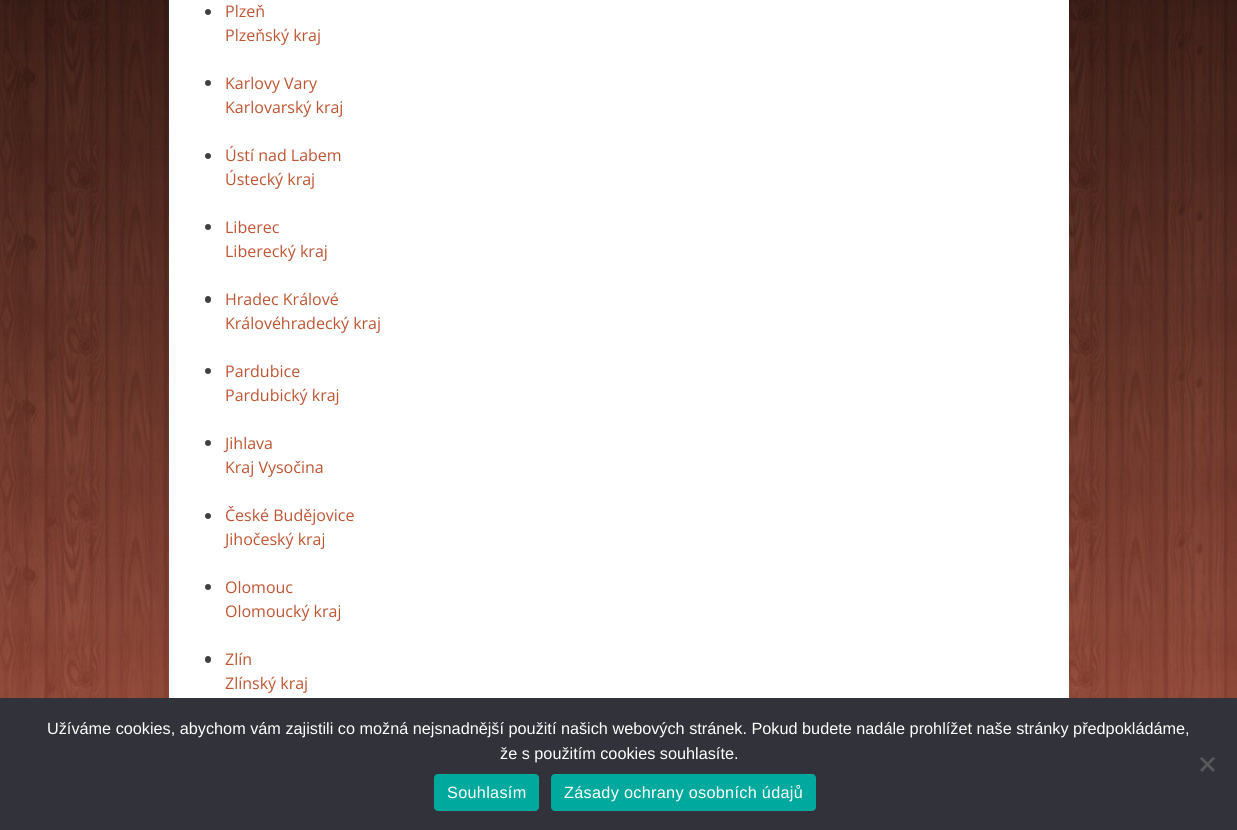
import math
import cairo


def use_color(cr, r, g, b):
  cr.set_source_rgb(r / 255, g / 255, b / 255)

def text(cr, x, y, s, family, size, color, bold=False, italic=False):
  cr.select_font_face(family, cairo.FONT_SLANT_ITALIC if italic else cairo.FONT_SLANT_NORMAL, cairo.FONT_WEIGHT_BOLD if bold else cairo.FONT_WEIGHT_NORMAL)
  cr.set_font_size(size)
  use_color(cr, *color)
  cr.move_to(x, y)
  cr.show_text(s)

def spaced_text(cr, x, y, s, letter, word):
  cr.move_to(x, y)
  for ch in s:
    cr.show_text(ch)
    cr.rel_move_to(letter + word * (ch == ' '), 0)

def box(cr, x, y, w, h, *color):
  use_color(cr, *color)
  cr.rectangle(x, y, w, h)
  cr.fill()

def round_rect(cr, x, y, w, h, r):
  cr.new_sub_path()
  for i, (u, v) in enumerate([(x + w - r, y + h - r), (x + r, y + h - r), (x + r, y + r), (x + w - r, y + r)]):
    cr.arc(u, v, r, i * math.pi / 2, (i + 1) * math.pi / 2)
  cr.close_path()

def picture(cr, path, x, y, w, h):
  cr.save()
  cr.set_source_surface(cairo.ImageSurface.create_from_png(path), x, y)
  cr.rectangle(x, y, w, h)
  cr.fill()
  cr.restore()

def draw(cr):
  use_color(cr, 255, 255, 255)
  cr.paint()
  picture(cr, "img_01.png", 0, 0, 1237, 698)
  box(cr, 169, 0, 900, 698, 255, 255, 255)
  use_color(cr, 64, 64, 64)
  cr.arc(208, 12, 3, 0, 2 * math.pi)
  cr.fill()
  cr.arc(208, 83, 3, 0, 2 * math.pi)
  cr.fill()
  cr.arc(208, 156, 3, 0, 2 * math.pi)
  cr.fill()
  cr.arc(208, 227, 3, 0, 2 * math.pi)
  cr.fill()
  round_rect(cr, 205, 296, 6, 7, 3)
  cr.fill()
  cr.arc(208, 371, 3, 0, 2 * math.pi)
  cr.fill()
  cr.arc(208, 443, 3, 0, 2 * math.pi)
  cr.fill()
  cr.arc(208, 516, 3, 0, 2 * math.pi)
  cr.fill()
  cr.arc(208, 587, 3, 0, 2 * math.pi)
  cr.fill()
  round_rect(cr, 205, 656, 6, 7, 3)
  cr.fill()
  box(cr, 0, 698, 1237, 132, 50, 50, 58)
  use_color(cr, 89, 89, 93)
  cr.new_path()
  cr.move_to(1213, 757)
  cr.line_to(1215, 758.5)
  cr.line_to(1202, 772)
  cr.line_to(1200, 770)
  cr.close_path()
  cr.fill()
  cr.new_path()
  cr.move_to(1200, 758.5)
  cr.line_to(1202, 757)
  cr.line_to(1215, 770)
  cr.line_to(1213, 772)
  cr.close_path()
  cr.fill()
  use_color(cr, 0, 169, 157)
  round_rect(cr, 434, 774, 105, 37, 4)
  cr.fill()
  round_rect(cr, 551, 774, 265, 37, 4)
  cr.fill()
  text(cr, 225, 17, "Plzeň", "Open Sans", 16, (190, 85, 50))
  text(cr, 225, 41, "Plzeňský kraj", "Open Sans", 16, (190, 85, 50))
  text(cr, 225, 89, "Karlovy Vary", "Open Sans", 16, (190, 85, 50))
  text(cr, 225, 113, "Karlovarský kraj", "Open Sans", 16, (190, 85, 50))
  text(cr, 225, 161, "Ústí nad Labem", "Open Sans", 16, (190, 85, 50))
  text(cr, 225, 185, "Ústecký kraj", "Open Sans", 16, (190, 85, 50))
  text(cr, 225, 233, "Liberec", "Open Sans", 16, (190, 85, 50))
  text(cr, 225, 257, "Liberecký kraj", "Open Sans", 16, (190, 85, 50))
  text(cr, 225, 305, "Hradec Králové", "Open Sans", 16, (190, 85, 50))
  text(cr, 225, 329, "Královéhradecký kraj", "Open Sans", 16, (190, 85, 50))
  text(cr, 225, 377, "Pardubice", "Open Sans", 16, (190, 85, 50))
  text(cr, 225, 401, "Pardubický kraj", "Open Sans", 16, (190, 85, 50))
  text(cr, 225, 449, "Jihlava", "Open Sans", 16, (190, 85, 50))
  text(cr, 225, 473, "Kraj Vysočina", "Open Sans", 16, (190, 85, 50))
  text(cr, 225, 521, "České Budějovice", "Open Sans", 16, (190, 85, 50))
  text(cr, 225, 545, "Jihočeský kraj", "Open Sans", 16, (190, 85, 50))
  text(cr, 225, 593, "Olomouc", "Open Sans", 16, (190, 85, 50))
  text(cr, 225, 617, "Olomoucký kraj", "Open Sans", 16, (190, 85, 50))
  text(cr, 225, 665, "Zlín", "Open Sans", 16, (190, 85, 50))
  text(cr, 225, 689, "Zlínský kraj", "Open Sans", 16, (190, 85, 50))
  text(cr, 47, 734, "Užíváme cookies, abychom vám zajistili co možná nejsnadnější použití našich webových stránek. Pokud budete nadále prohlížet naše stránky předpokládáme,", "Liberation Sans", 16.25, (255, 255, 255))
  text(cr, 500, 759, "že s použitím cookies souhlasíte.", "Liberation Sans", 16.25, (255, 255, 255))
  spaced_text(cr, 447, 798, "Souhlasím", 0.3, 0)
  spaced_text(cr, 564, 798, "Zásady ochrany osobních údajů", 0.3, 0)


surface = cairo.ImageSurface(cairo.FORMAT_RGB24, 1237, 830)
cr = cairo.Context(surface)
options = cairo.FontOptions()
options.set_hint_metrics(cairo.HINT_METRICS_OFF)
options.set_hint_style(cairo.HINT_STYLE_NONE)
cr.set_font_options(options)
cr.set_miter_limit(4)
draw(cr)
surface.write_to_png("out.png")
